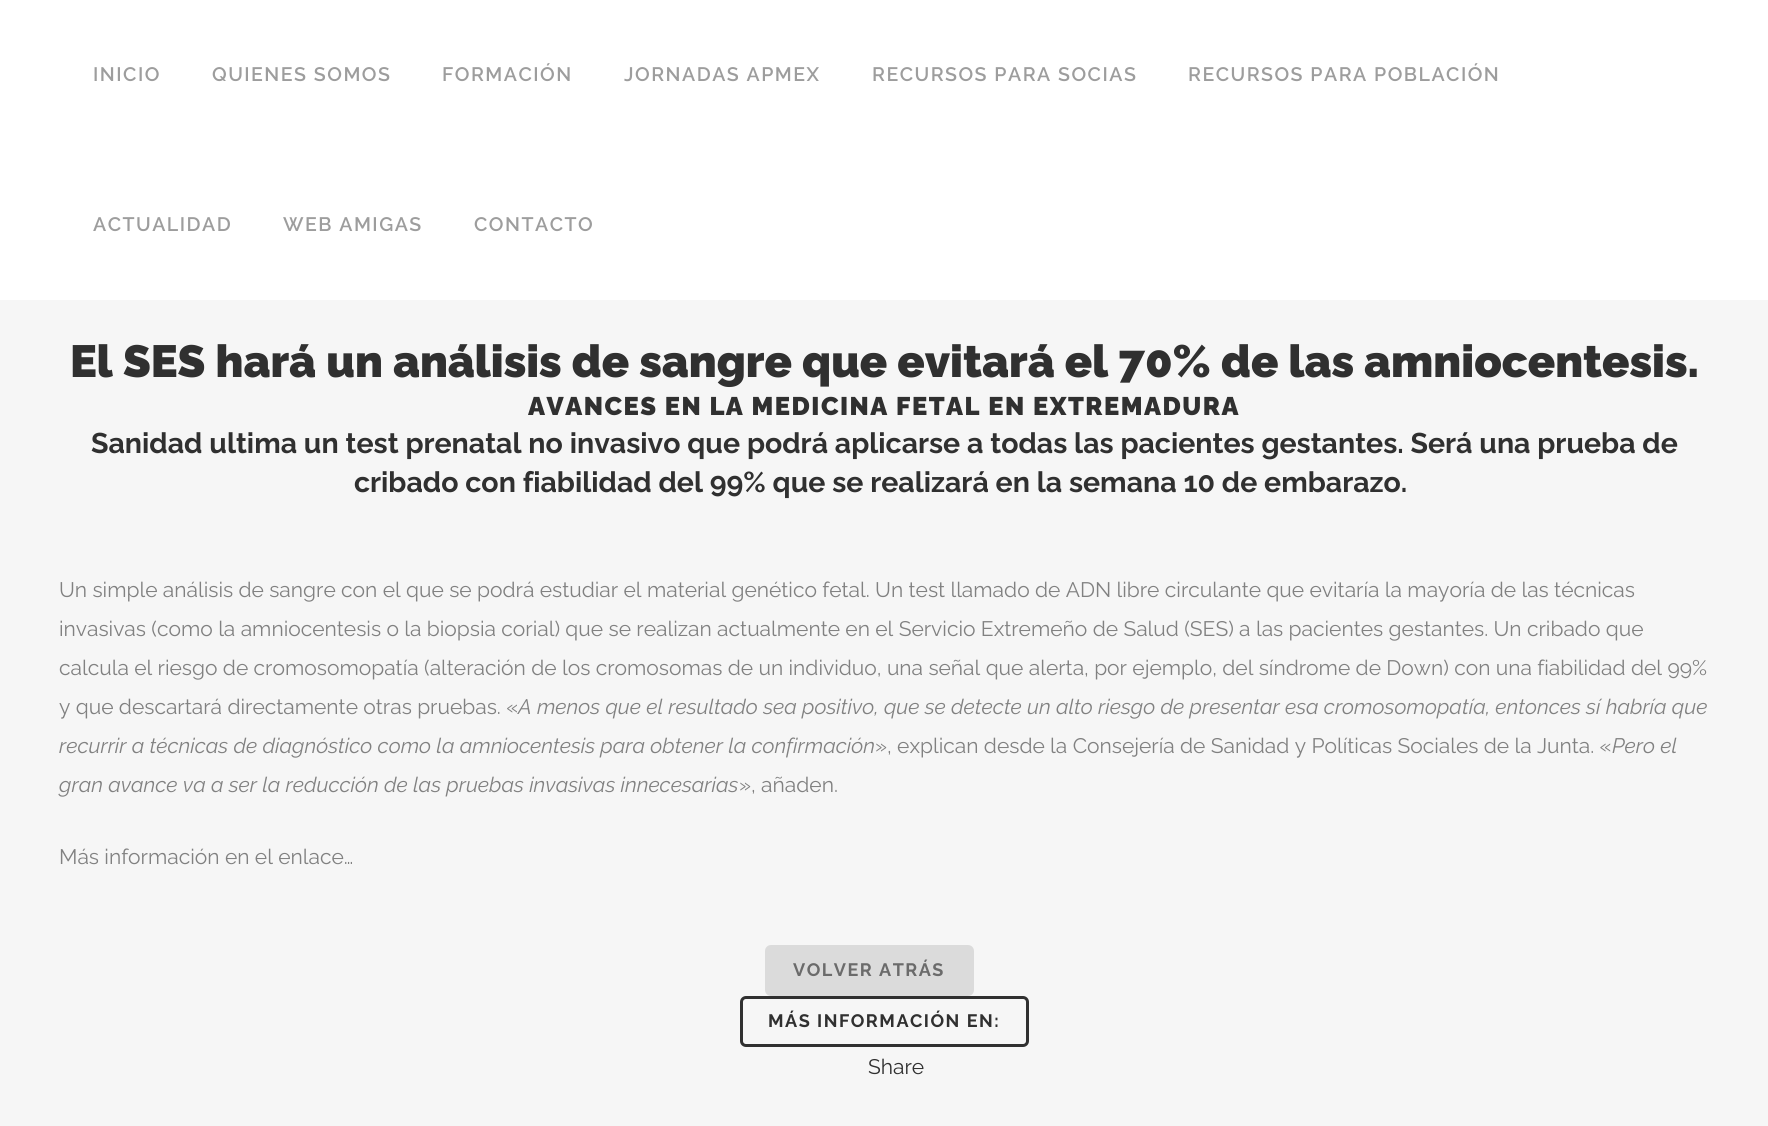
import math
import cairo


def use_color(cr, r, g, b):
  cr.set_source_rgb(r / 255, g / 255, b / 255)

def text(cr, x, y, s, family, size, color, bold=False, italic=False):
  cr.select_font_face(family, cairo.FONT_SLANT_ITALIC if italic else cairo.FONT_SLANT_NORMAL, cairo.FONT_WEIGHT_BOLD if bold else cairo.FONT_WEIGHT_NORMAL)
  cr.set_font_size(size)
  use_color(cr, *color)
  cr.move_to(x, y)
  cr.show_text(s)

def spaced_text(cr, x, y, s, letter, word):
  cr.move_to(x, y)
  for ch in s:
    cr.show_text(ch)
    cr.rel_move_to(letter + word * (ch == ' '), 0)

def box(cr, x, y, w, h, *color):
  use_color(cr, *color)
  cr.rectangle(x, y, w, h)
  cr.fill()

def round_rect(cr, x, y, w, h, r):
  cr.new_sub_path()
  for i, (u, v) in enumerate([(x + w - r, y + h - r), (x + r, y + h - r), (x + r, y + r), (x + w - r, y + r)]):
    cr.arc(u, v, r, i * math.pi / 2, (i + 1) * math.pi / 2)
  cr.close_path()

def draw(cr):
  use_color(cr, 246, 246, 246)
  cr.paint()
  box(cr, 0, 0, 1768, 300, 255, 255, 255)
  use_color(cr, 219, 219, 219)
  round_rect(cr, 765, 945, 209, 51, 6)
  cr.fill()
  round_rect(cr, 741.5, 997.5, 286, 48, 4.5)
  use_color(cr, 48, 48, 48)
  cr.set_line_width(3)
  cr.stroke()
  cr.select_font_face("Raleway SemiBold")
  cr.set_font_size(19.5)
  use_color(cr, 157, 157, 157)
  spaced_text(cr, 93, 81, "INICIO", 1.5, 0)
  spaced_text(cr, 212, 81, "QUIENES SOMOS", 1.5, 0)
  spaced_text(cr, 442, 81, "FORMACIÓN", 1.5, 0)
  spaced_text(cr, 624, 81, "JORNADAS APMEX", 1.5, 0)
  spaced_text(cr, 872, 81, "RECURSOS PARA SOCIAS", 1.5, 0)
  spaced_text(cr, 1188, 81, "RECURSOS PARA POBLACIÓN", 1.5, 0)
  spaced_text(cr, 93, 231, "ACTUALIDAD", 1.5, 0)
  spaced_text(cr, 283, 231, "WEB AMIGAS", 1.5, 0)
  spaced_text(cr, 474, 231, "CONTACTO", 1.5, 0)
  text(cr, 70, 377, "El SES hará un análisis de sangre que evitará el 70% de las amniocentesis.", "Raleway Black", 45, (48, 48, 48))
  cr.set_font_size(25.5)
  spaced_text(cr, 528, 415, "AVANCES EN LA MEDICINA FETAL EN EXTREMADURA", 1.5, 0)
  text(cr, 91, 453, "Sanidad ultima un test prenatal no invasivo que podrá aplicarse a todas las pacientes gestantes. Será una prueba de", "Raleway", 28.5, (48, 48, 48), bold=True)
  text(cr, 354, 492, "cribado con fiabilidad del 99% que se realizará en la semana 10 de embarazo.", "Raleway", 28.5, (48, 48, 48), bold=True)
  text(cr, 59, 597, "Un simple análisis de sangre con el que se podrá estudiar el material genético fetal. Un test llamado de ADN libre circulante que evitaría la mayoría de las técnicas", "Raleway", 21, (129, 129, 129))
  text(cr, 59, 636, "invasivas (como la amniocentesis o la biopsia corial) que se realizan actualmente en el Servicio Extremeño de Salud (SES) a las pacientes gestantes. Un cribado que", "Raleway", 21, (129, 129, 129))
  text(cr, 59, 675, "calcula el riesgo de cromosomopatía (alteración de los cromosomas de un individuo, una señal que alerta, por ejemplo, del síndrome de Down) con una fiabilidad del 99%", "Raleway", 21, (129, 129, 129))
  text(cr, 59, 714, "y que descartará directamente otras pruebas. «", "Raleway", 21, (129, 129, 129))
  text(cr, 518, 714, "A menos que el resultado sea positivo, que se detecte un alto riesgo de presentar esa cromosomopatía, entonces sí habría que", "Raleway", 21, (129, 129, 129), italic=True)
  text(cr, 59, 753, "recurrir a técnicas de diagnóstico como la amniocentesis para obtener la confirmación", "Raleway", 21, (129, 129, 129), italic=True)
  text(cr, 875, 753, "», explican desde la Consejería de Sanidad y Políticas Sociales de la Junta. «", "Raleway", 21, (129, 129, 129))
  text(cr, 1612, 753, "Pero el", "Raleway", 21, (129, 129, 129), italic=True)
  text(cr, 59, 792, "gran avance va a ser la reducción de las pruebas invasivas innecesarias", "Raleway", 21, (129, 129, 129), italic=True)
  text(cr, 739, 792, "», añaden.", "Raleway", 21, (129, 129, 129))
  text(cr, 59, 864, "Más información en el enlace…", "Raleway", 21, (129, 129, 129))
  cr.select_font_face("Raleway", cairo.FONT_SLANT_NORMAL, cairo.FONT_WEIGHT_BOLD)
  cr.set_font_size(18)
  use_color(cr, 107, 107, 107)
  spaced_text(cr, 793, 976, "VOLVER ATRÁS", 1.5, 0)
  use_color(cr, 48, 48, 48)
  spaced_text(cr, 768, 1027, "MÁS INFORMACIÓN EN:", 1.5, 0)
  text(cr, 868, 1074, "Share", "Raleway", 21, (48, 48, 48))


surface = cairo.ImageSurface(cairo.FORMAT_RGB24, 1768, 1126)
cr = cairo.Context(surface)
options = cairo.FontOptions()
options.set_hint_metrics(cairo.HINT_METRICS_OFF)
options.set_hint_style(cairo.HINT_STYLE_NONE)
cr.set_font_options(options)
cr.set_miter_limit(4)
draw(cr)
surface.write_to_png("out.png")
